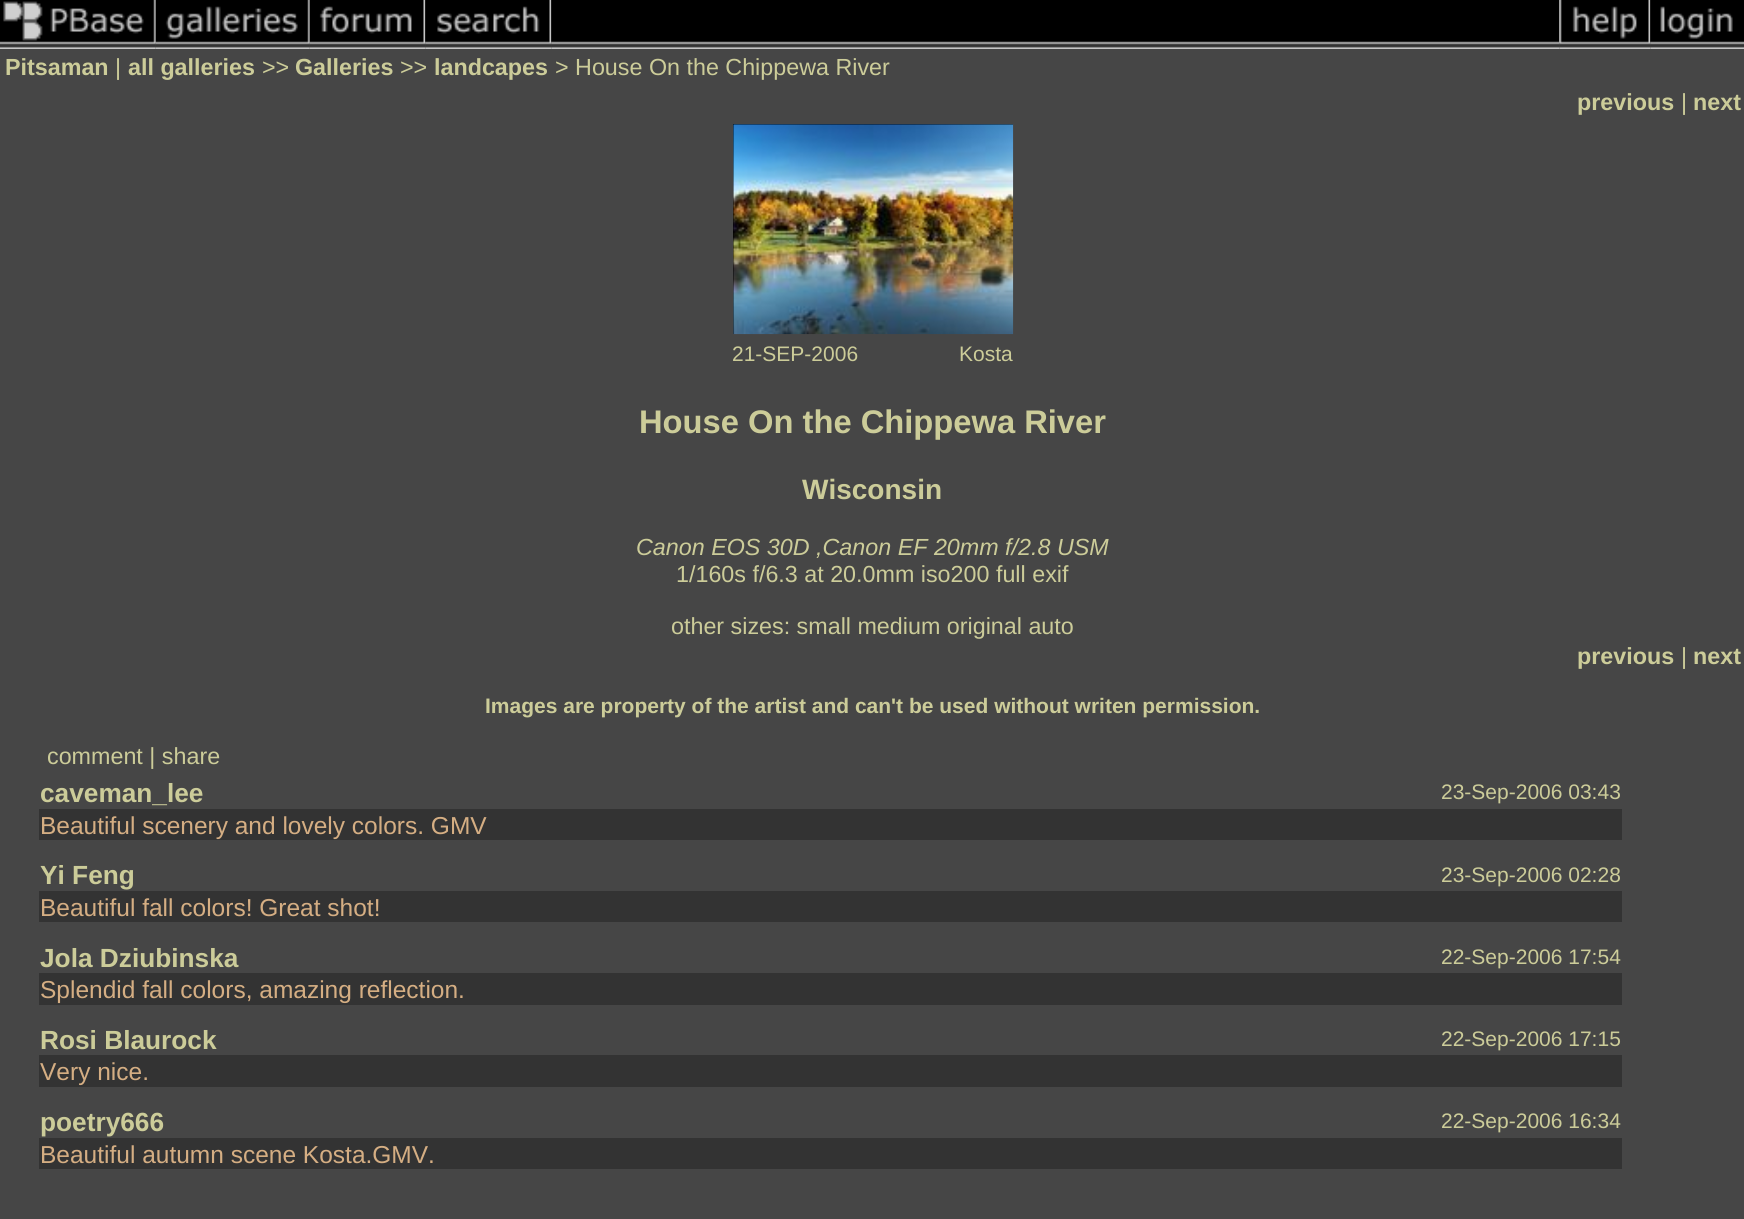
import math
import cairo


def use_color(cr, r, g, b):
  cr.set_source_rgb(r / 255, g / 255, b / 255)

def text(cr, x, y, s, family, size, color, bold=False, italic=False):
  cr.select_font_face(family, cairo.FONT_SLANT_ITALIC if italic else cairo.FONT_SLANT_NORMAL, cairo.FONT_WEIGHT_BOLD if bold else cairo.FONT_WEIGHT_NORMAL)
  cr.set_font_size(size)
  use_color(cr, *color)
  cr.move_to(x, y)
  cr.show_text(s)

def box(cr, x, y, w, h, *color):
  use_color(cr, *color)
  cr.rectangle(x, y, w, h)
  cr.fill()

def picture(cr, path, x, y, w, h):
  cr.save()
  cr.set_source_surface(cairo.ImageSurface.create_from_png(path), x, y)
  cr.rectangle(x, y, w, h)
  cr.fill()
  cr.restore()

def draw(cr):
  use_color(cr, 70, 70, 70)
  cr.paint()
  picture(cr, "img_01.png", 0, 0, 156, 49)
  picture(cr, "img_02.png", 155, 0, 155, 49)
  picture(cr, "img_03.png", 309, 0, 117, 49)
  picture(cr, "img_04.png", 425, 0, 127, 49)
  picture(cr, "img_05.png", 551, 0, 1009, 49)
  picture(cr, "img_06.png", 1559, 0, 92, 49)
  picture(cr, "img_07.png", 1650, 0, 94, 49)
  box(cr, 733, 124, 280, 210, 0, 0, 0)
  picture(cr, "img_08.png", 733, 124, 281, 211)
  box(cr, 39, 809, 1583, 31, 51, 51, 51)
  box(cr, 39, 891, 1583, 31, 51, 51, 51)
  box(cr, 39, 973, 1583, 32, 51, 51, 51)
  box(cr, 39, 1055, 1583, 32, 51, 51, 51)
  box(cr, 39, 1138, 1583, 31, 51, 51, 51)
  text(cr, 5, 75, "Pitsaman", "Liberation Sans", 23.3, (204, 204, 153), bold=True)
  text(cr, 115, 75, "|", "Liberation Sans", 23.3, (204, 204, 153))
  text(cr, 128, 75, "all galleries", "Liberation Sans", 23.3, (204, 204, 153), bold=True)
  text(cr, 262, 75, ">>", "Liberation Sans", 23.3, (204, 204, 153))
  text(cr, 295, 75, "Galleries", "Liberation Sans", 23.3, (204, 204, 153), bold=True)
  text(cr, 400, 75, ">>", "Liberation Sans", 23.3, (204, 204, 153))
  text(cr, 434, 75, "landcapes", "Liberation Sans", 23.3, (204, 204, 153), bold=True)
  text(cr, 555, 75, "> House On the Chippewa River", "Liberation Sans", 23.3, (204, 204, 153))
  text(cr, 1577, 110, "previous", "Liberation Sans", 23.3, (204, 204, 153), bold=True)
  text(cr, 1681, 110, "|", "Liberation Sans", 23.3, (204, 204, 153))
  text(cr, 1693, 110, "next", "Liberation Sans", 23.3, (204, 204, 153), bold=True)
  text(cr, 732, 361, "21-SEP-2006", "Liberation Sans", 21, (204, 204, 153))
  text(cr, 959, 361, "Kosta", "Liberation Sans", 21, (204, 204, 153))
  text(cr, 639, 433, "House On the Chippewa River", "Liberation Sans", 32.7, (204, 204, 153), bold=True)
  text(cr, 802, 499, "Wisconsin", "Liberation Sans", 28, (204, 204, 153), bold=True)
  text(cr, 636, 555, "Canon EOS 30D ,Canon EF 20mm f/2.8 USM", "Liberation Sans", 23.3, (204, 204, 153), italic=True)
  text(cr, 676, 582, "1/160s f/6.3 at 20.0mm iso200 full exif", "Liberation Sans", 23.3, (204, 204, 153))
  text(cr, 671, 634, "other sizes: small medium original auto", "Liberation Sans", 23.3, (204, 204, 153))
  text(cr, 1577, 664, "previous", "Liberation Sans", 23.3, (204, 204, 153), bold=True)
  text(cr, 1681, 664, "|", "Liberation Sans", 23.3, (204, 204, 153))
  text(cr, 1693, 664, "next", "Liberation Sans", 23.3, (204, 204, 153), bold=True)
  text(cr, 485, 713, "Images are property of the artist and can't be used without writen permission.", "Liberation Sans", 21, (204, 204, 153), bold=True)
  text(cr, 47, 764, "comment | share", "Liberation Sans", 23.3, (204, 204, 153))
  text(cr, 40, 802, "caveman_lee", "Liberation Sans", 26.25, (204, 204, 153), bold=True)
  text(cr, 1441, 799, "23-Sep-2006 03:43", "Liberation Sans", 21, (204, 204, 153))
  text(cr, 40, 834, "Beautiful scenery and lovely colors. GMV", "Liberation Sans", 24.5, (213, 174, 131))
  text(cr, 40, 884, "Yi Feng", "Liberation Sans", 26.25, (204, 204, 153), bold=True)
  text(cr, 1441, 882, "23-Sep-2006 02:28", "Liberation Sans", 21, (204, 204, 153))
  text(cr, 40, 916, "Beautiful fall colors! Great shot!", "Liberation Sans", 24.5, (213, 174, 131))
  text(cr, 40, 967, "Jola Dziubinska", "Liberation Sans", 26.25, (204, 204, 153), bold=True)
  text(cr, 1441, 964, "22-Sep-2006 17:54", "Liberation Sans", 21, (204, 204, 153))
  text(cr, 40, 998, "Splendid fall colors, amazing reflection.", "Liberation Sans", 24.5, (213, 174, 131))
  text(cr, 40, 1049, "Rosi Blaurock", "Liberation Sans", 26.25, (204, 204, 153), bold=True)
  text(cr, 1441, 1046, "22-Sep-2006 17:15", "Liberation Sans", 21, (204, 204, 153))
  text(cr, 40, 1080, "Very nice.", "Liberation Sans", 24.5, (213, 174, 131))
  text(cr, 40, 1131, "poetry666", "Liberation Sans", 26.25, (204, 204, 153), bold=True)
  text(cr, 1441, 1128, "22-Sep-2006 16:34", "Liberation Sans", 21, (204, 204, 153))
  text(cr, 40, 1163, "Beautiful autumn scene Kosta.GMV.", "Liberation Sans", 24.5, (213, 174, 131))


surface = cairo.ImageSurface(cairo.FORMAT_RGB24, 1744, 1219)
cr = cairo.Context(surface)
options = cairo.FontOptions()
options.set_hint_metrics(cairo.HINT_METRICS_OFF)
options.set_hint_style(cairo.HINT_STYLE_NONE)
cr.set_font_options(options)
cr.set_miter_limit(4)
draw(cr)
surface.write_to_png("out.png")
